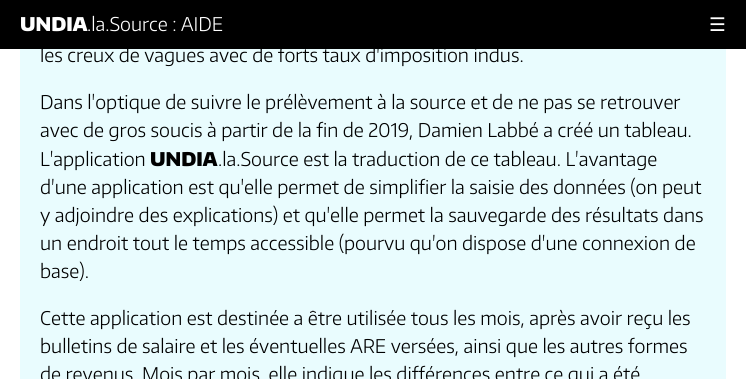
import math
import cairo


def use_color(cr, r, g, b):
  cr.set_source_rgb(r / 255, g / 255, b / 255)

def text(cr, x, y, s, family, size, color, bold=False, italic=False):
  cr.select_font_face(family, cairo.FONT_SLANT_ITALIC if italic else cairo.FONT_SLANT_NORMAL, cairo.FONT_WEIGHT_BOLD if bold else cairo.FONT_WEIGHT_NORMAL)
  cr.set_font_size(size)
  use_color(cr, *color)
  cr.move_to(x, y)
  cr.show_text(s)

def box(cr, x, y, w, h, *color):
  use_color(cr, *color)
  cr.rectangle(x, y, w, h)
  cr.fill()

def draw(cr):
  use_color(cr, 255, 255, 255)
  cr.paint()
  box(cr, 0, 0, 746, 49, 0, 0, 0)
  box(cr, 20, 49, 706, 330, 233, 252, 254)
  text(cr, 20, 31, "UNDIA", "Encode Sans Black", 18.75, (255, 255, 255))
  text(cr, 87, 31, ".la.Source : AIDE", "Encode Sans Light", 18.75, (255, 255, 255))
  text(cr, 709, 31, "☰", "DejaVu Sans", 18.75, (255, 255, 255))
  text(cr, 40, 62, "les creux de vagues avec de forts taux d'imposition indus.", "Encode Sans Light", 18.75, (0, 0, 0))
  text(cr, 40, 109, "Dans l'optique de suivre le prélèvement à la source et de ne pas se retrouver", "Encode Sans Light", 18.75, (0, 0, 0))
  text(cr, 40, 137, "avec de gros soucis à partir de la fin de 2019, Damien Labbé a créé un tableau.", "Encode Sans Light", 18.75, (0, 0, 0))
  text(cr, 40, 166, "L'application", "Encode Sans Light", 18.75, (0, 0, 0))
  text(cr, 150, 166, "UNDIA", "Encode Sans Black", 18.75, (0, 0, 0))
  text(cr, 218, 166, ".la.Source est la traduction de ce tableau. L'avantage", "Encode Sans Light", 18.75, (0, 0, 0))
  text(cr, 40, 194, "d'une application est qu'elle permet de simplifier la saisie des données (on peut", "Encode Sans Light", 18.75, (0, 0, 0))
  text(cr, 40, 222, "y adjoindre des explications) et qu'elle permet la sauvegarde des résultats dans", "Encode Sans Light", 18.75, (0, 0, 0))
  text(cr, 40, 250, "un endroit tout le temps accessible (pourvu qu'on dispose d'une connexion de", "Encode Sans Light", 18.75, (0, 0, 0))
  text(cr, 40, 278, "base).", "Encode Sans Light", 18.75, (0, 0, 0))
  text(cr, 40, 325, "Cette application est destinée a être utilisée tous les mois, après avoir reçu les", "Encode Sans Light", 18.75, (0, 0, 0))
  text(cr, 40, 353, "bulletins de salaire et les éventuelles ARE versées, ainsi que les autres formes", "Encode Sans Light", 18.75, (0, 0, 0))
  text(cr, 40, 381, "de revenus. Mois par mois, elle indique les différences entre ce qui a été", "Encode Sans Light", 18.75, (0, 0, 0))


surface = cairo.ImageSurface(cairo.FORMAT_RGB24, 746, 379)
cr = cairo.Context(surface)
options = cairo.FontOptions()
options.set_hint_metrics(cairo.HINT_METRICS_OFF)
options.set_hint_style(cairo.HINT_STYLE_NONE)
cr.set_font_options(options)
cr.set_miter_limit(4)
draw(cr)
surface.write_to_png("out.png")
